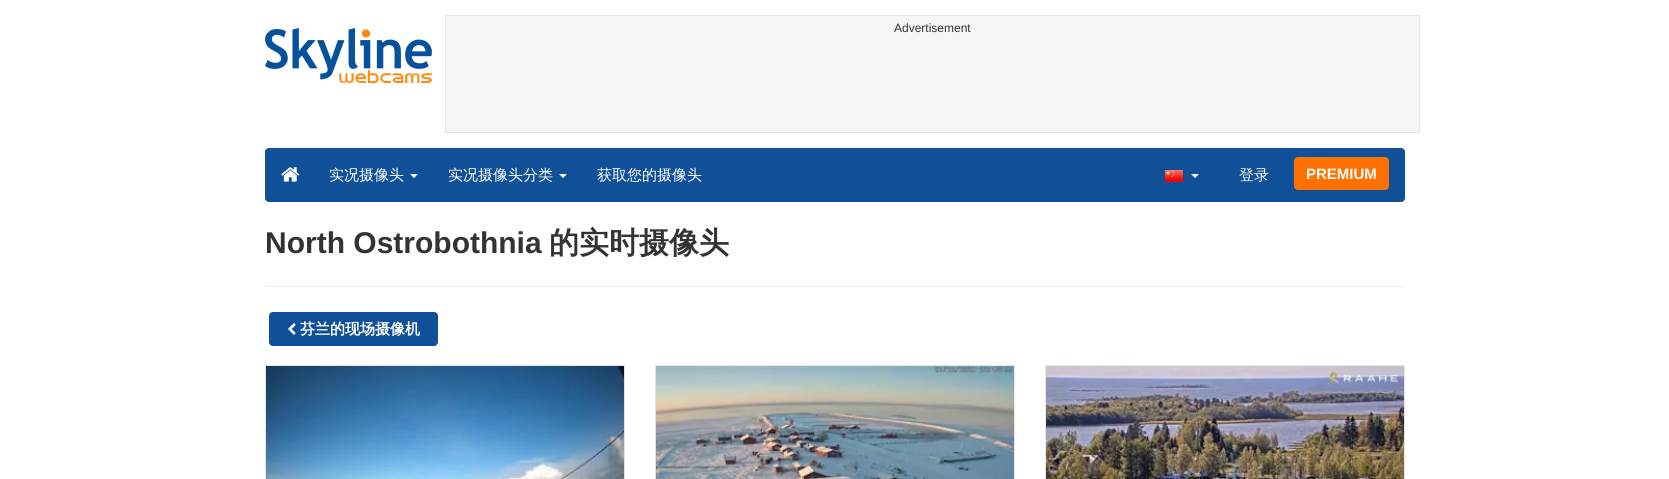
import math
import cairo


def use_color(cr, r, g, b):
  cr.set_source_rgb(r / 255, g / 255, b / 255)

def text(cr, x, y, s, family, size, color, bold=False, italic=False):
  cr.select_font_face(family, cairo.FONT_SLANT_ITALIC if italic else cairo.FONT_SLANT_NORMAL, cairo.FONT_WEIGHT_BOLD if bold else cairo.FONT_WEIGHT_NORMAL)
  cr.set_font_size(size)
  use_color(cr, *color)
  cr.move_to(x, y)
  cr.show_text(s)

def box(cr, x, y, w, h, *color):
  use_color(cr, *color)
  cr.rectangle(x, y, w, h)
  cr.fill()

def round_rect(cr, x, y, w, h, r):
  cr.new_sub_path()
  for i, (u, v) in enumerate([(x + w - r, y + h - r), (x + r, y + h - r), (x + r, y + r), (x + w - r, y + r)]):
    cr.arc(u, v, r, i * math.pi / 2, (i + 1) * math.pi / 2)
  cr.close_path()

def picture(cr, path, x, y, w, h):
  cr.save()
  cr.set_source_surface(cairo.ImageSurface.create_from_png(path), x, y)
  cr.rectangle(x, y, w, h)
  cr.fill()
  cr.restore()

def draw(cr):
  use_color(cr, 255, 255, 255)
  cr.paint()
  picture(cr, "img_01.png", 265, 28, 167, 55)
  use_color(cr, 246, 246, 246)
  cr.rectangle(445.5, 15.5, 974, 117)
  cr.fill_preserve()
  use_color(cr, 230, 230, 230)
  cr.set_line_width(1)
  cr.stroke()
  use_color(cr, 16, 80, 152)
  round_rect(cr, 265, 148, 1140, 54, 4)
  cr.fill()
  picture(cr, "img_02.png", 281, 167, 19, 15)
  use_color(cr, 255, 255, 255)
  cr.new_path()
  cr.move_to(410, 174)
  cr.line_to(418, 174)
  cr.line_to(414, 178)
  cr.close_path()
  cr.fill()
  cr.new_path()
  cr.move_to(559, 174)
  cr.line_to(567, 174)
  cr.line_to(563, 178)
  cr.close_path()
  cr.fill()
  picture(cr, "img_03.png", 1165, 170, 18, 12)
  cr.new_path()
  cr.move_to(1191, 174)
  cr.line_to(1199, 174)
  cr.line_to(1195, 178)
  cr.close_path()
  cr.fill()
  use_color(cr, 255, 112, 0)
  round_rect(cr, 1294, 157, 95, 33, 4)
  cr.fill()
  box(cr, 265, 286, 1140, 1, 238, 238, 238)
  use_color(cr, 16, 80, 152)
  round_rect(cr, 269, 312, 169, 34, 4)
  cr.fill()
  picture(cr, "img_04.png", 288, 323, 8, 12)
  cr.rectangle(265.5, 365.5, 359, 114)
  use_color(cr, 230, 230, 230)
  cr.stroke()
  picture(cr, "img_05.png", 266, 366, 358, 113)
  cr.rectangle(655.5, 365.5, 359, 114)
  cr.stroke()
  picture(cr, "img_06.png", 656, 366, 358, 113)
  cr.rectangle(1045.5, 365.5, 359, 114)
  cr.stroke()
  picture(cr, "img_07.png", 1046, 366, 358, 113)
  text(cr, 894, 32, "Advertisement", "Liberation Sans", 12, (51, 51, 51))
  text(cr, 329, 180, "实况摄像头", "WenQuanYi Zen Hei Medium", 15, (255, 255, 255))
  text(cr, 448, 180, "实况摄像头分类", "WenQuanYi Zen Hei Medium", 15, (255, 255, 255))
  text(cr, 597, 180, "获取您的摄像头", "WenQuanYi Zen Hei Medium", 15, (255, 255, 255))
  text(cr, 1239, 180, "登录", "WenQuanYi Zen Hei Medium", 15, (255, 255, 255))
  text(cr, 1306, 179, "PREMIUM", "Liberation Sans", 15, (255, 255, 255), bold=True)
  text(cr, 265, 253, "North Ostrobothnia", "Liberation Sans", 30, (51, 51, 51), bold=True)
  text(cr, 549, 253, "的实时摄像头", "WenQuanYi Zen Hei", 30, (51, 51, 51), bold=True)
  text(cr, 300, 334, "芬兰的现场摄像机", "WenQuanYi Zen Hei", 15, (255, 255, 255), bold=True)


surface = cairo.ImageSurface(cairo.FORMAT_RGB24, 1669, 479)
cr = cairo.Context(surface)
options = cairo.FontOptions()
options.set_hint_metrics(cairo.HINT_METRICS_OFF)
options.set_hint_style(cairo.HINT_STYLE_NONE)
cr.set_font_options(options)
cr.set_miter_limit(4)
draw(cr)
surface.write_to_png("out.png")
